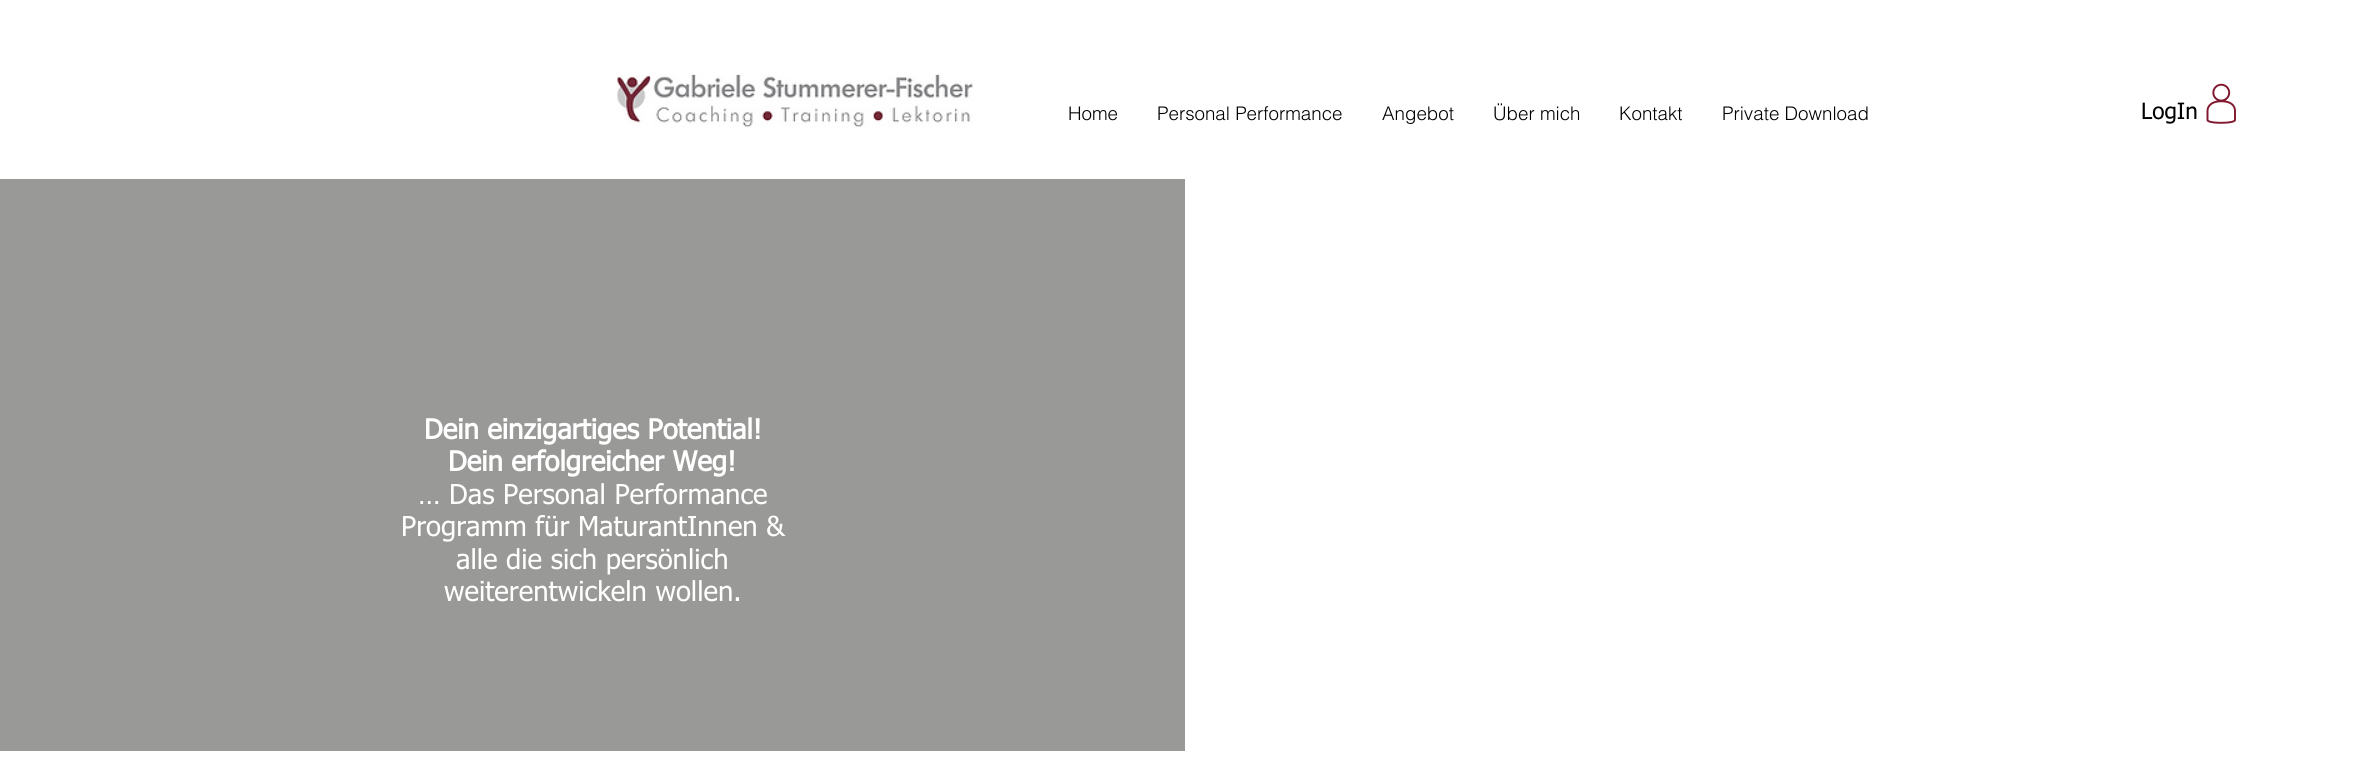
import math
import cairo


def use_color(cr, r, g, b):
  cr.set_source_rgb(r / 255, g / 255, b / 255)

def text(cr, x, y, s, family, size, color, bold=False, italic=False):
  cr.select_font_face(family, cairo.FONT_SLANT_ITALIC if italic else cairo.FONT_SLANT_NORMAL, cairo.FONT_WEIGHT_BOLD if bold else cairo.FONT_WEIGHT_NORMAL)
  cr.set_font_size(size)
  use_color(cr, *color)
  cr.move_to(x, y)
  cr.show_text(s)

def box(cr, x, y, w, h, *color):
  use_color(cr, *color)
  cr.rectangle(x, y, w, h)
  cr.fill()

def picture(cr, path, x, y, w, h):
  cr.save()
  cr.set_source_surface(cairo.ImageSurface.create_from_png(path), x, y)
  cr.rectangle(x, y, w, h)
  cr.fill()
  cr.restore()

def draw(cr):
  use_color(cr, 255, 255, 255)
  cr.paint()
  picture(cr, "img_01.png", 616, 74, 357, 54)
  picture(cr, "img_02.png", 2206, 83, 30, 41)
  box(cr, 0, 179, 1185, 572, 153, 153, 151)
  text(cr, 1068, 120, "Home", "helvetica Light", 18.75, (0, 0, 0))
  text(cr, 1157, 120, "Personal Performance", "helvetica Light", 18.75, (0, 0, 0))
  text(cr, 1382, 120, "Angebot", "helvetica Light", 18.75, (0, 0, 0))
  text(cr, 1493, 120, "Über mich", "helvetica Light", 18.75, (0, 0, 0))
  text(cr, 1619, 120, "Kontakt", "helvetica Light", 18.75, (0, 0, 0))
  text(cr, 1722, 120, "Private Download", "helvetica Light", 18.75, (0, 0, 0))
  text(cr, 2141, 119, "LogIn", "tahoma", 22.5, (0, 0, 0))
  text(cr, 424, 439, "Dein einzigartiges Potential!", "tahoma", 27.5, (255, 255, 255), bold=True)
  text(cr, 448, 471, "Dein erfolgreicher Weg!", "tahoma", 27.5, (255, 255, 255), bold=True)
  text(cr, 418, 504, "… Das Personal Performance", "tahoma", 27.5, (255, 255, 255))
  text(cr, 401, 536, "Programm für MaturantInnen &", "tahoma", 27.5, (255, 255, 255))
  text(cr, 456, 569, "alle die sich persönlich", "tahoma", 27.5, (255, 255, 255))
  text(cr, 444, 601, "weiterentwickeln wollen.", "tahoma", 27.5, (255, 255, 255))


surface = cairo.ImageSurface(cairo.FORMAT_RGB24, 2370, 765)
cr = cairo.Context(surface)
options = cairo.FontOptions()
options.set_hint_metrics(cairo.HINT_METRICS_OFF)
options.set_hint_style(cairo.HINT_STYLE_NONE)
cr.set_font_options(options)
cr.set_miter_limit(4)
draw(cr)
surface.write_to_png("out.png")
